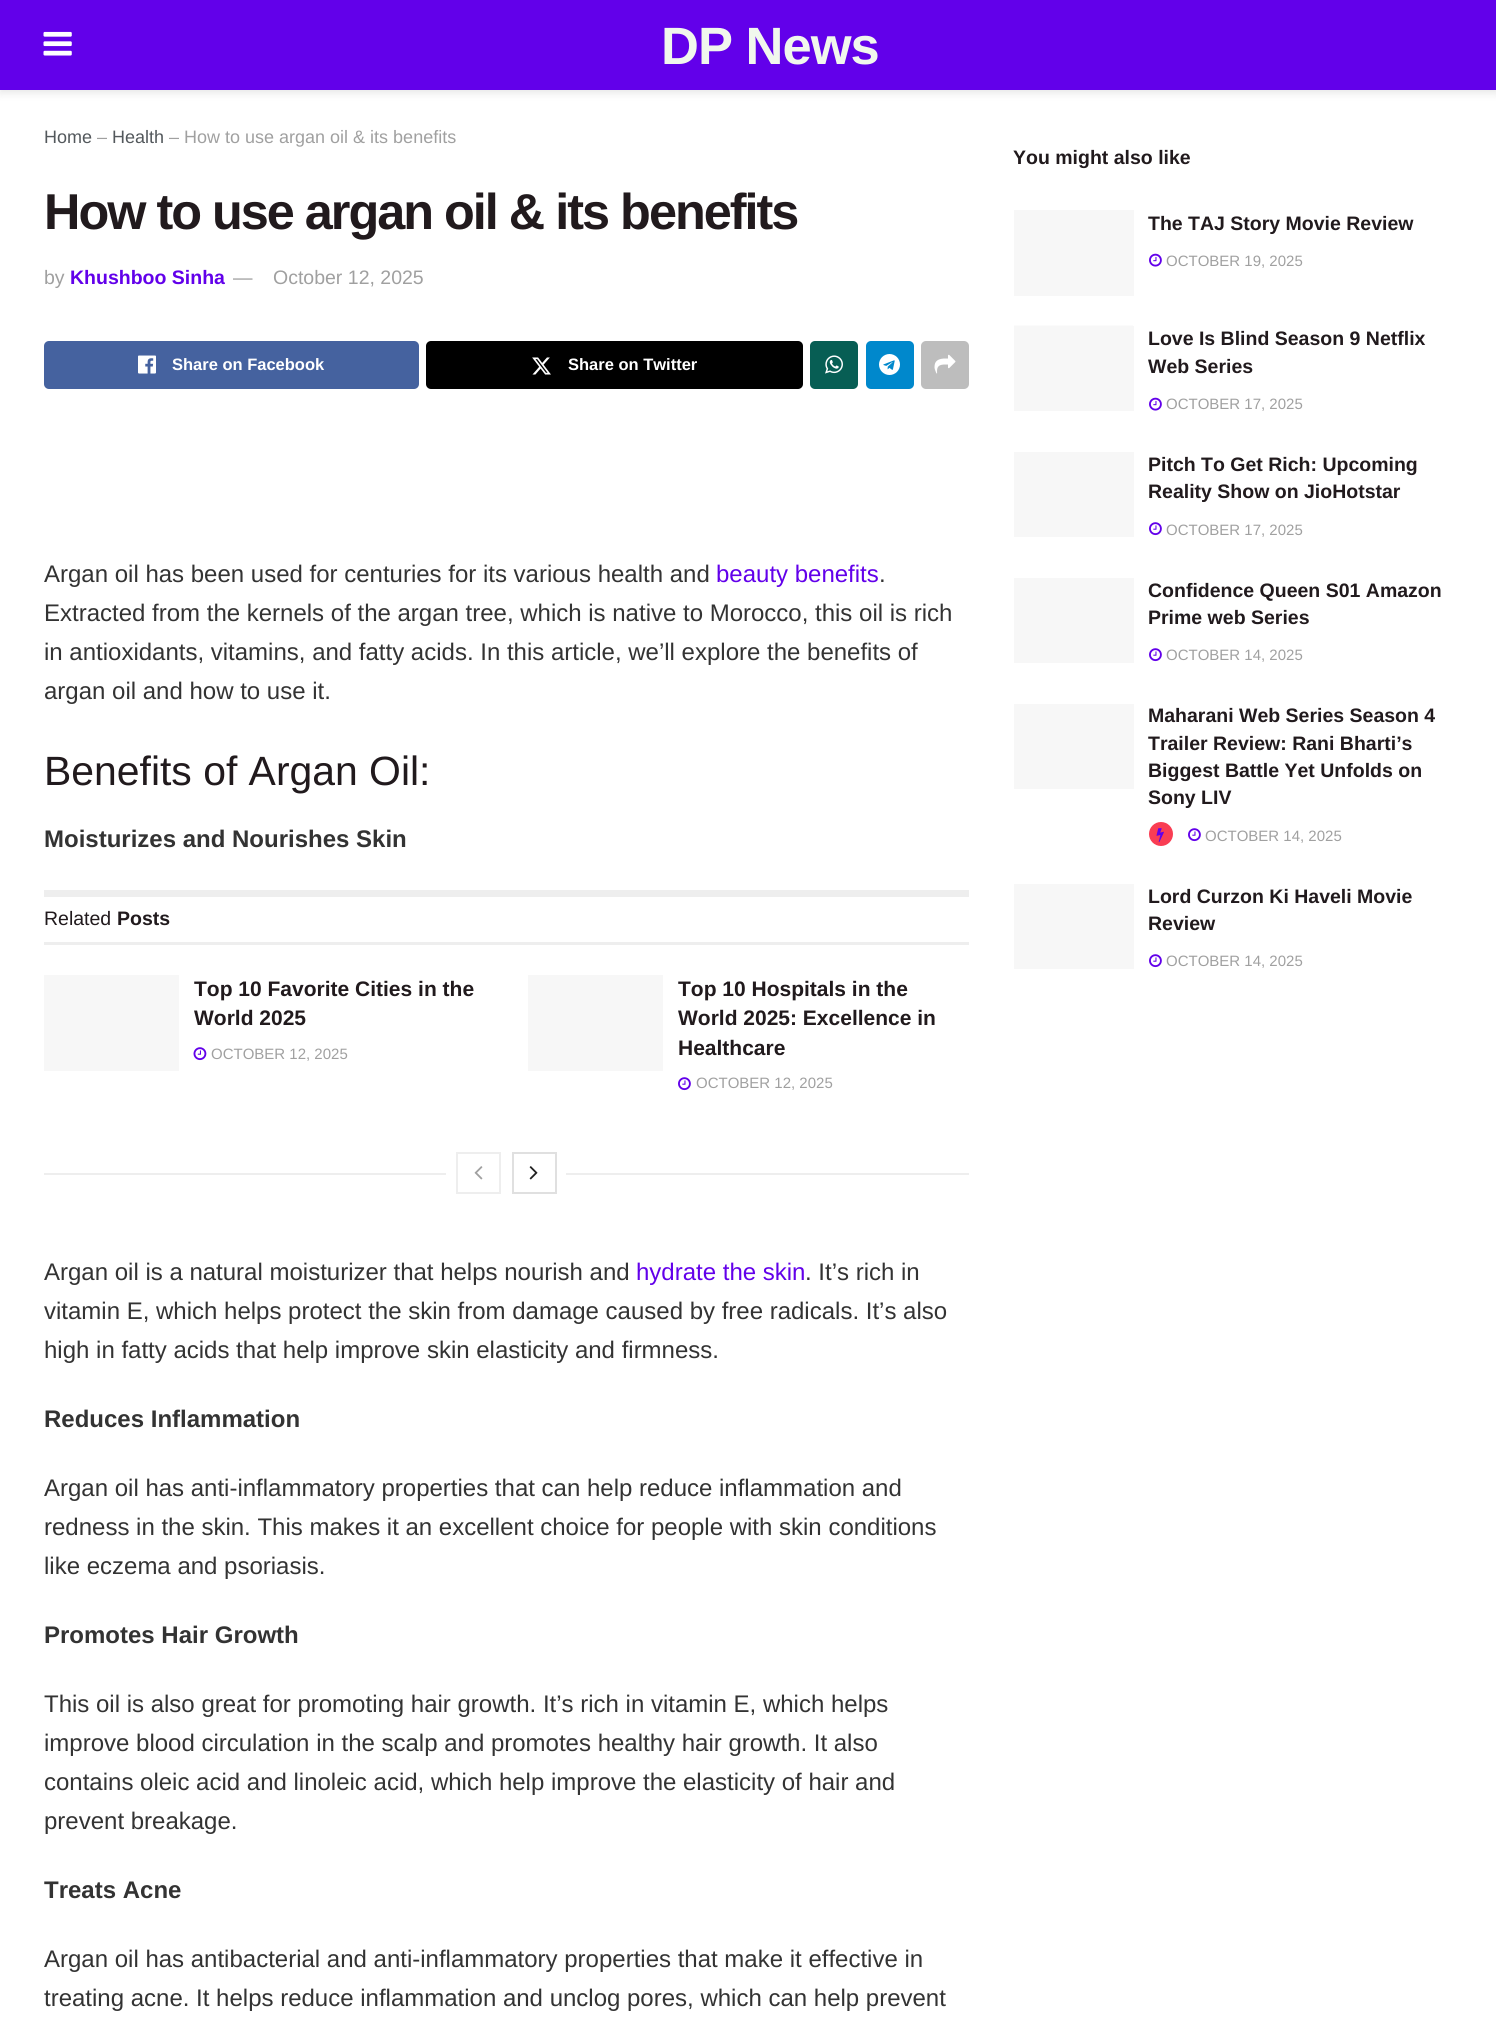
import math
import cairo


def use_color(cr, r, g, b):
  cr.set_source_rgb(r / 255, g / 255, b / 255)

def text(cr, x, y, s, family, size, color, bold=False, italic=False):
  cr.select_font_face(family, cairo.FONT_SLANT_ITALIC if italic else cairo.FONT_SLANT_NORMAL, cairo.FONT_WEIGHT_BOLD if bold else cairo.FONT_WEIGHT_NORMAL)
  cr.set_font_size(size)
  use_color(cr, *color)
  cr.move_to(x, y)
  cr.show_text(s)

def spaced_text(cr, x, y, s, letter, word):
  cr.move_to(x, y)
  for ch in s:
    cr.show_text(ch)
    cr.rel_move_to(letter + word * (ch == ' '), 0)

def box(cr, x, y, w, h, *color):
  use_color(cr, *color)
  cr.rectangle(x, y, w, h)
  cr.fill()

def round_rect(cr, x, y, w, h, r):
  cr.new_sub_path()
  for i, (u, v) in enumerate([(x + w - r, y + h - r), (x + r, y + h - r), (x + r, y + r), (x + w - r, y + r)]):
    cr.arc(u, v, r, i * math.pi / 2, (i + 1) * math.pi / 2)
  cr.close_path()

def shadow(cr, x, y, w, h, r, blur, alpha):
  cr.push_group_with_content(cairo.CONTENT_ALPHA)
  cr.set_operator(cairo.OPERATOR_SOURCE)
  for i in range(15, -16, -2):
    e = blur * i / 6
    if min(w, h) + 2 * e > 0:
      cr.set_source_rgba(0, 0, 0, alpha * math.erfc((i - 1) / 8.5) / 2)
      round_rect(cr, x - e, y - e, w + 2 * e, h + 2 * e, max(0, min(r + e + blur * .6, min(w, h) / 2 + e)))
      cr.fill()
  cr.mask(cr.pop_group())

def picture(cr, path, x, y, w, h):
  cr.save()
  cr.set_source_surface(cairo.ImageSurface.create_from_png(path), x, y)
  cr.rectangle(x, y, w, h)
  cr.fill()
  cr.restore()

def draw(cr):
  use_color(cr, 255, 255, 255)
  cr.paint()
  use_color(cr, 0, 0, 0)
  shadow(cr, 0, 3, 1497, 90, 0, 4.5, 0.1)
  box(cr, 0, 0, 1496, 90, 98, 0, 234)
  picture(cr, "img_01.png", 43, 31, 29, 25)
  use_color(cr, 69, 98, 159)
  round_rect(cr, 44, 341, 375, 48, 5)
  cr.fill()
  picture(cr, "img_02.png", 138, 355, 18, 19)
  use_color(cr, 0, 0, 0)
  round_rect(cr, 426, 341, 377, 48, 5)
  cr.fill()
  picture(cr, "img_03.png", 532, 357, 19, 18)
  use_color(cr, 7, 94, 84)
  round_rect(cr, 810, 341, 48, 48, 5)
  cr.fill()
  picture(cr, "img_04.png", 825, 355, 18, 19)
  use_color(cr, 0, 136, 204)
  round_rect(cr, 866, 341, 48, 48, 5)
  cr.fill()
  picture(cr, "img_05.png", 879, 354, 21, 21)
  use_color(cr, 189, 189, 189)
  round_rect(cr, 921, 341, 48, 48, 5)
  cr.fill()
  picture(cr, "img_06.png", 934, 354, 22, 20)
  box(cr, 44, 890, 925, 7, 238, 238, 238)
  box(cr, 44, 942, 925, 3, 238, 238, 238)
  box(cr, 44, 975, 135, 96, 247, 247, 247)
  picture(cr, "img_07.png", 193, 1047, 14, 14)
  box(cr, 528, 975, 135, 96, 247, 247, 247)
  picture(cr, "img_08.png", 678, 1077, 13, 14)
  box(cr, 44, 1173, 402, 2, 238, 238, 238)
  cr.rectangle(457, 1153, 43, 40)
  cr.stroke()
  picture(cr, "img_09.png", 474, 1166, 9, 14)
  cr.rectangle(513, 1153, 43, 40)
  use_color(cr, 224, 224, 224)
  cr.stroke()
  picture(cr, "img_10.png", 529, 1166, 9, 14)
  box(cr, 566, 1173, 403, 2, 238, 238, 238)
  box(cr, 1014, 210, 120, 86, 247, 247, 247)
  picture(cr, "img_11.png", 1149, 253, 13, 14)
  box(cr, 1014, 326, 120, 85, 247, 247, 247)
  box(cr, 1014, 325, 119, 1, 251, 251, 251)
  picture(cr, "img_11.png", 1149, 397, 13, 14)
  box(cr, 1014, 452, 120, 85, 247, 247, 247)
  picture(cr, "img_08.png", 1149, 522, 13, 14)
  box(cr, 1014, 578, 120, 85, 247, 247, 247)
  picture(cr, "img_08.png", 1149, 648, 13, 14)
  box(cr, 1014, 704, 120, 85, 247, 247, 247)
  use_color(cr, 249, 61, 83)
  cr.arc(1161, 834, 12, 0, 2 * math.pi)
  cr.fill()
  picture(cr, "img_12.png", 1156, 828, 8, 15)
  picture(cr, "img_08.png", 1188, 828, 13, 14)
  box(cr, 1014, 884, 120, 85, 247, 247, 247)
  picture(cr, "img_08.png", 1149, 954, 13, 14)
  cr.select_font_face("Liberation Sans", cairo.FONT_SLANT_NORMAL, cairo.FONT_WEIGHT_BOLD)
  cr.set_font_size(52.5)
  use_color(cr, 241, 247, 237)
  spaced_text(cr, 661, 64, "DP News", -1, 0)
  text(cr, 44, 143, "Home", "Liberation Sans", 18, (83, 88, 92))
  text(cr, 97, 143, "–", "Liberation Sans", 18, (160, 160, 160))
  text(cr, 112, 143, "Health", "Liberation Sans", 18, (83, 88, 92))
  text(cr, 169, 143, "– How to use argan oil & its benefits", "Liberation Sans", 18, (160, 160, 160))
  cr.select_font_face("Liberation Sans", cairo.FONT_SLANT_NORMAL, cairo.FONT_WEIGHT_BOLD)
  cr.set_font_size(50.4)
  use_color(cr, 33, 26, 29)
  spaced_text(cr, 44, 229, "How to use argan oil & its benefits", -2, 0)
  text(cr, 44, 284, "by", "Liberation Sans", 19.5, (160, 160, 160))
  text(cr, 70, 284, "Khushboo Sinha", "Liberation Sans", 19.5, (98, 0, 234), bold=True)
  text(cr, 233, 284, "—", "Liberation Sans", 19.5, (160, 160, 160))
  text(cr, 273, 284, "October 12, 2025", "Liberation Sans", 19.5, (160, 160, 160))
  text(cr, 172, 370, "Share on Facebook", "Liberation Sans", 16.5, (255, 255, 255), bold=True)
  text(cr, 568, 370, "Share on Twitter", "Liberation Sans", 16.5, (255, 255, 255), bold=True)
  text(cr, 44, 582, "Argan oil has been used for centuries for its various health and", "Liberation Sans", 24, (51, 51, 51))
  text(cr, 716, 582, "beauty benefits", "Liberation Sans", 24, (98, 0, 234))
  text(cr, 879, 582, ".", "Liberation Sans", 24, (51, 51, 51))
  text(cr, 44, 621, "Extracted from the kernels of the argan tree, which is native to Morocco, this oil is rich", "Liberation Sans", 24, (51, 51, 51))
  text(cr, 44, 660, "in antioxidants, vitamins, and fatty acids. In this article, we’ll explore the benefits of", "Liberation Sans", 24, (51, 51, 51))
  text(cr, 44, 699, "argan oil and how to use it.", "Liberation Sans", 24, (51, 51, 51))
  text(cr, 44, 785, "Benefits of Argan Oil:", "Liberation Sans", 40.9, (33, 26, 29))
  text(cr, 44, 847, "Moisturizes and Nourishes Skin", "Liberation Sans", 24, (51, 51, 51), bold=True)
  text(cr, 44, 925, "Related", "Liberation Sans", 19.5, (33, 26, 29))
  text(cr, 117, 925, "Posts", "Liberation Sans", 19.5, (33, 26, 29), bold=True)
  text(cr, 194, 996, "Top 10 Favorite Cities in the", "Liberation Sans", 21, (33, 26, 29), bold=True)
  text(cr, 194, 1025, "World 2025", "Liberation Sans", 21, (33, 26, 29), bold=True)
  text(cr, 211, 1059, "OCTOBER 12, 2025", "Liberation Sans", 15, (160, 160, 160))
  text(cr, 678, 996, "Top 10 Hospitals in the", "Liberation Sans", 21, (33, 26, 29), bold=True)
  text(cr, 678, 1025, "World 2025: Excellence in", "Liberation Sans", 21, (33, 26, 29), bold=True)
  text(cr, 678, 1055, "Healthcare", "Liberation Sans", 21, (33, 26, 29), bold=True)
  text(cr, 696, 1088, "OCTOBER 12, 2025", "Liberation Sans", 15, (160, 160, 160))
  text(cr, 44, 1280, "Argan oil is a natural moisturizer that helps nourish and", "Liberation Sans", 24, (51, 51, 51))
  text(cr, 636, 1280, "hydrate the skin", "Liberation Sans", 24, (98, 0, 234))
  text(cr, 805, 1280, ". It’s rich in", "Liberation Sans", 24, (51, 51, 51))
  text(cr, 44, 1319, "vitamin E, which helps protect the skin from damage caused by free radicals. It’s also", "Liberation Sans", 24, (51, 51, 51))
  text(cr, 44, 1358, "high in fatty acids that help improve skin elasticity and firmness.", "Liberation Sans", 24, (51, 51, 51))
  text(cr, 44, 1427, "Reduces Inflammation", "Liberation Sans", 24, (51, 51, 51), bold=True)
  text(cr, 44, 1496, "Argan oil has anti-inflammatory properties that can help reduce inflammation and", "Liberation Sans", 24, (51, 51, 51))
  text(cr, 44, 1535, "redness in the skin. This makes it an excellent choice for people with skin conditions", "Liberation Sans", 24, (51, 51, 51))
  text(cr, 44, 1574, "like eczema and psoriasis.", "Liberation Sans", 24, (51, 51, 51))
  text(cr, 44, 1643, "Promotes Hair Growth", "Liberation Sans", 24, (51, 51, 51), bold=True)
  text(cr, 44, 1712, "This oil is also great for promoting hair growth. It’s rich in vitamin E, which helps", "Liberation Sans", 24, (51, 51, 51))
  text(cr, 44, 1751, "improve blood circulation in the scalp and promotes healthy hair growth. It also", "Liberation Sans", 24, (51, 51, 51))
  text(cr, 44, 1790, "contains oleic acid and linoleic acid, which help improve the elasticity of hair and", "Liberation Sans", 24, (51, 51, 51))
  text(cr, 44, 1829, "prevent breakage.", "Liberation Sans", 24, (51, 51, 51))
  text(cr, 44, 1898, "Treats Acne", "Liberation Sans", 24, (51, 51, 51), bold=True)
  text(cr, 44, 1967, "Argan oil has antibacterial and anti-inflammatory properties that make it effective in", "Liberation Sans", 24, (51, 51, 51))
  text(cr, 44, 2006, "treating acne. It helps reduce inflammation and unclog pores, which can help prevent", "Liberation Sans", 24, (51, 51, 51))
  text(cr, 1013, 164, "You might also like", "Liberation Sans", 19.5, (33, 26, 29), bold=True)
  text(cr, 1148, 230, "The TAJ Story Movie Review", "Liberation Sans", 19.5, (33, 26, 29), bold=True)
  text(cr, 1166, 266, "OCTOBER 19, 2025", "Liberation Sans", 15, (160, 160, 160))
  text(cr, 1148, 345, "Love Is Blind Season 9 Netflix", "Liberation Sans", 19.5, (33, 26, 29), bold=True)
  text(cr, 1148, 373, "Web Series", "Liberation Sans", 19.5, (33, 26, 29), bold=True)
  text(cr, 1166, 409, "OCTOBER 17, 2025", "Liberation Sans", 15, (160, 160, 160))
  text(cr, 1148, 471, "Pitch To Get Rich: Upcoming", "Liberation Sans", 19.5, (33, 26, 29), bold=True)
  text(cr, 1148, 498, "Reality Show on JioHotstar", "Liberation Sans", 19.5, (33, 26, 29), bold=True)
  text(cr, 1166, 535, "OCTOBER 17, 2025", "Liberation Sans", 15, (160, 160, 160))
  text(cr, 1148, 597, "Confidence Queen S01 Amazon", "Liberation Sans", 19.5, (33, 26, 29), bold=True)
  text(cr, 1148, 624, "Prime web Series", "Liberation Sans", 19.5, (33, 26, 29), bold=True)
  text(cr, 1166, 660, "OCTOBER 14, 2025", "Liberation Sans", 15, (160, 160, 160))
  text(cr, 1148, 722, "Maharani Web Series Season 4", "Liberation Sans", 19.5, (33, 26, 29), bold=True)
  text(cr, 1148, 750, "Trailer Review: Rani Bharti’s", "Liberation Sans", 19.5, (33, 26, 29), bold=True)
  text(cr, 1148, 777, "Biggest Battle Yet Unfolds on", "Liberation Sans", 19.5, (33, 26, 29), bold=True)
  text(cr, 1148, 804, "Sony LIV", "Liberation Sans", 19.5, (33, 26, 29), bold=True)
  text(cr, 1205, 841, "OCTOBER 14, 2025", "Liberation Sans", 15, (160, 160, 160))
  text(cr, 1148, 903, "Lord Curzon Ki Haveli Movie", "Liberation Sans", 19.5, (33, 26, 29), bold=True)
  text(cr, 1148, 930, "Review", "Liberation Sans", 19.5, (33, 26, 29), bold=True)
  text(cr, 1166, 966, "OCTOBER 14, 2025", "Liberation Sans", 15, (160, 160, 160))


surface = cairo.ImageSurface(cairo.FORMAT_RGB24, 1496, 2030)
cr = cairo.Context(surface)
options = cairo.FontOptions()
options.set_hint_metrics(cairo.HINT_METRICS_OFF)
options.set_hint_style(cairo.HINT_STYLE_NONE)
cr.set_font_options(options)
cr.set_miter_limit(4)
draw(cr)
surface.write_to_png("out.png")
